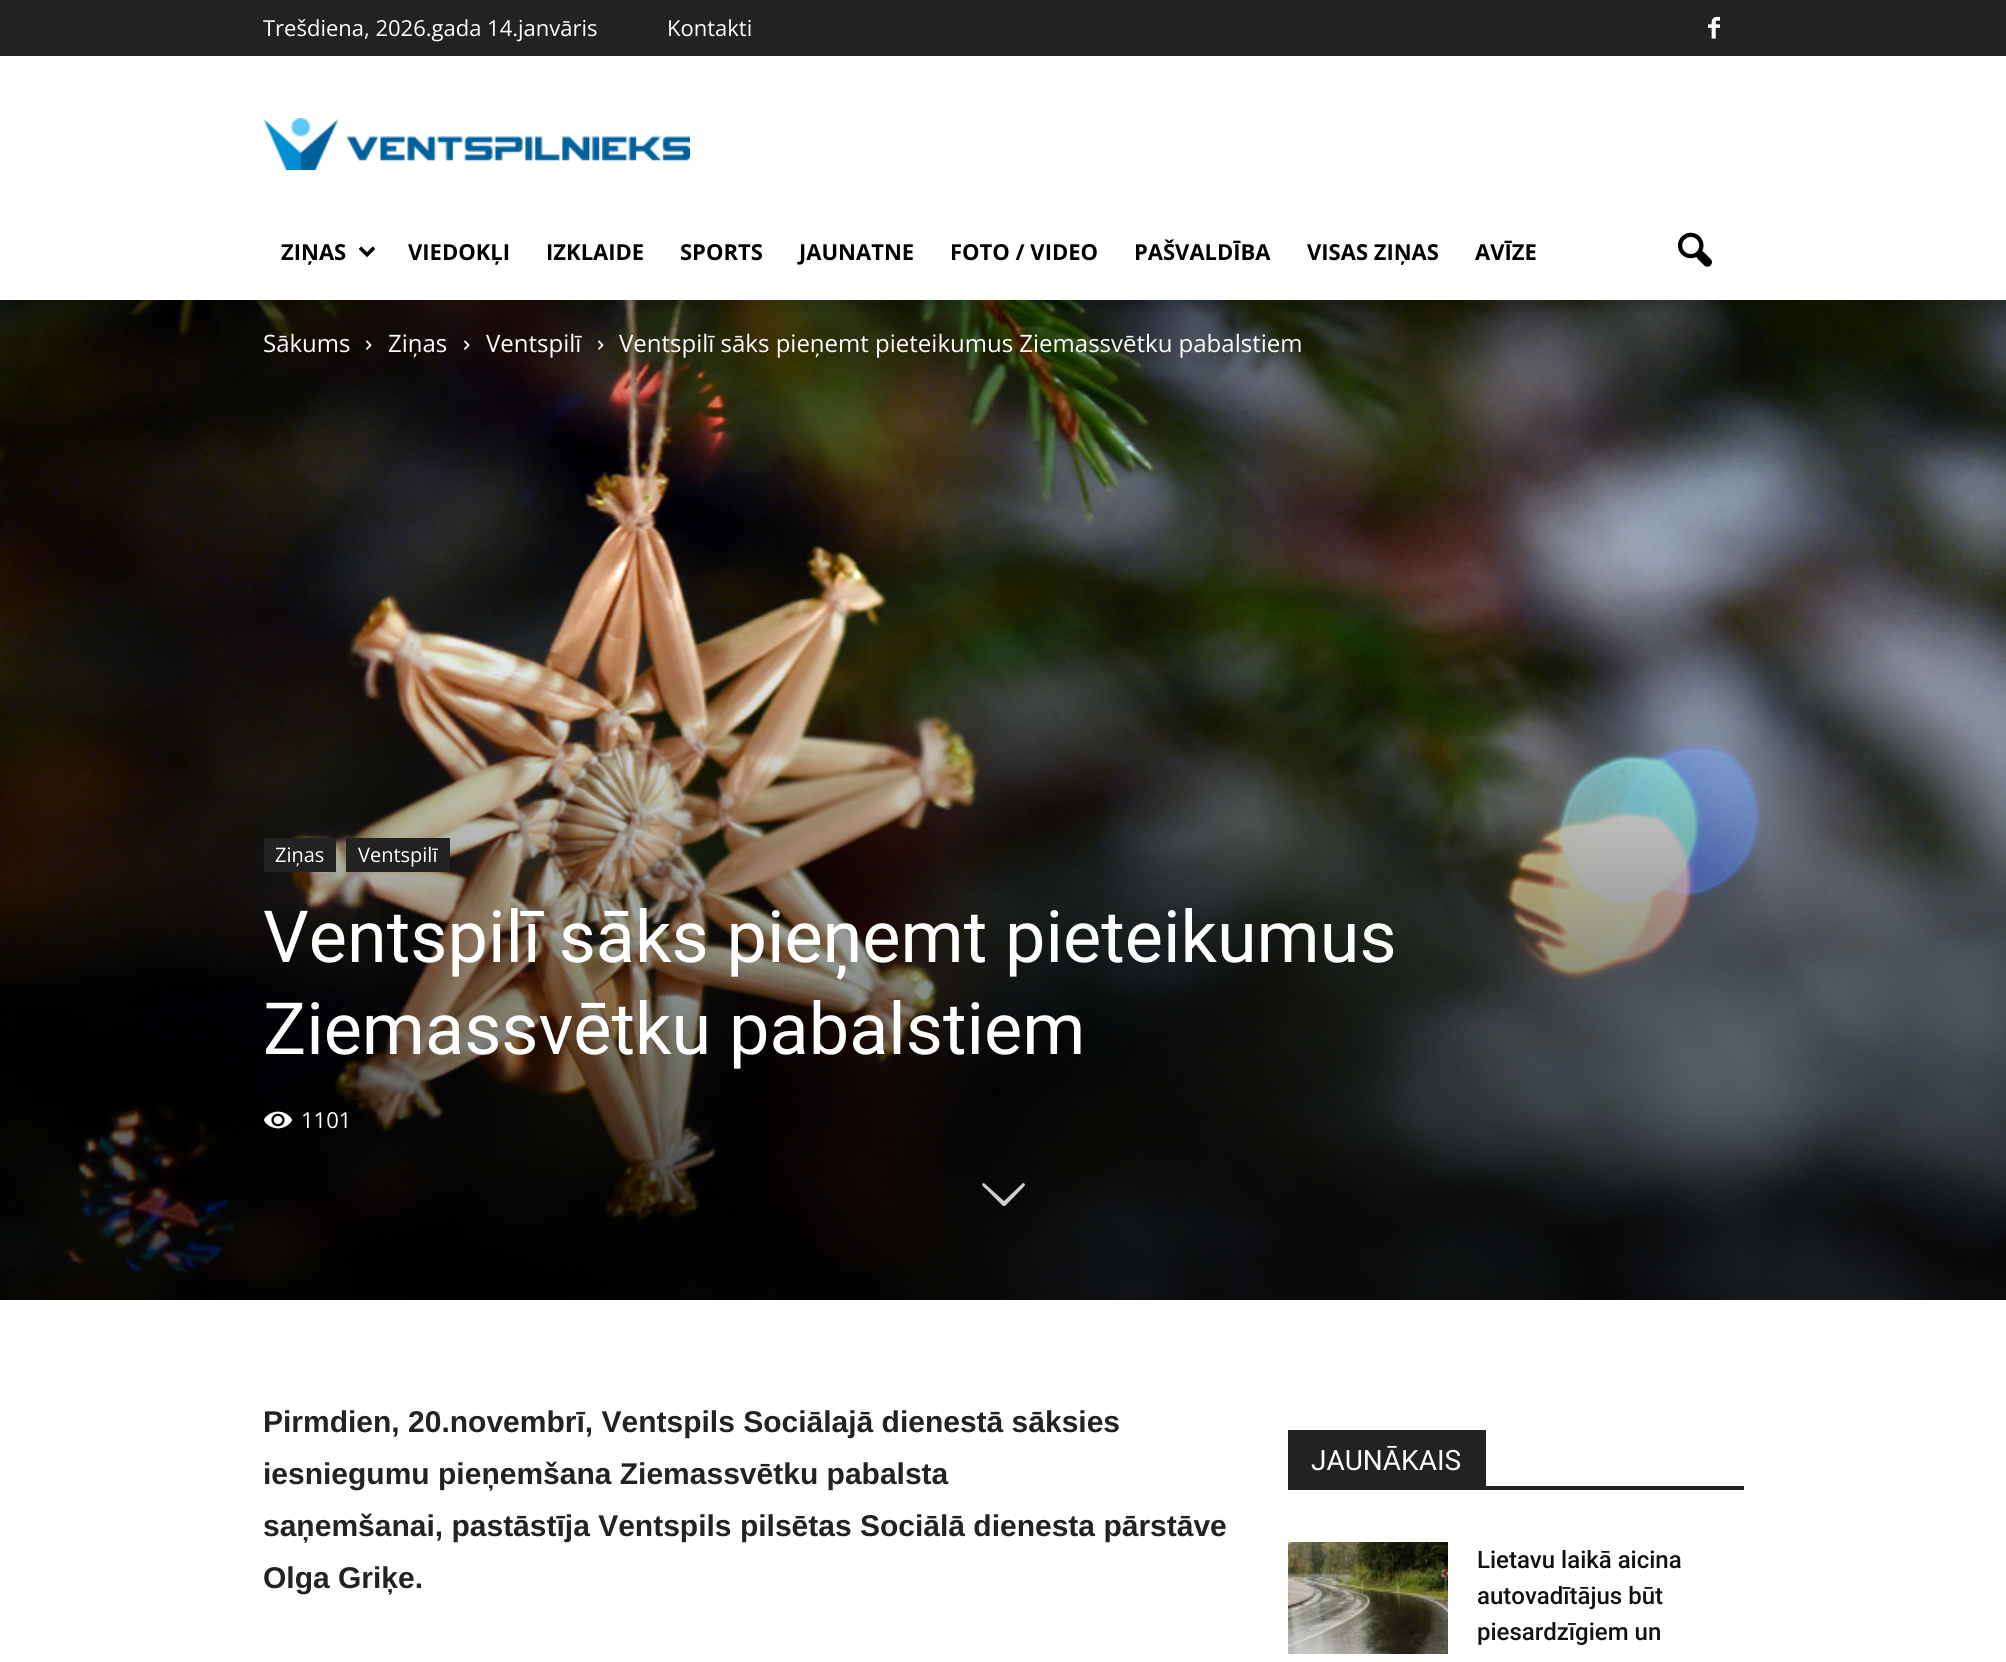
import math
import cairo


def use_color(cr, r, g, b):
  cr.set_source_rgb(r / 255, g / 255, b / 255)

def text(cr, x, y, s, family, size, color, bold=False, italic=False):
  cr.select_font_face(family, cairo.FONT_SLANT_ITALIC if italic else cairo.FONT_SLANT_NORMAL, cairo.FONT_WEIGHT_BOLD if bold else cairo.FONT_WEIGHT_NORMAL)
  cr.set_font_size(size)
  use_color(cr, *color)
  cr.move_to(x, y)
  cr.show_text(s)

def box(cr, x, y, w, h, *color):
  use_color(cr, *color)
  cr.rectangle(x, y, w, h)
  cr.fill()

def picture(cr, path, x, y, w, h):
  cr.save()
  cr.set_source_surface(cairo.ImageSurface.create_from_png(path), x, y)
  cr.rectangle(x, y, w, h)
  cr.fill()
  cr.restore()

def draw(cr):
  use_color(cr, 255, 255, 255)
  cr.paint()
  box(cr, 0, 0, 2006, 56, 34, 34, 34)
  picture(cr, "img_01.png", 1708, 16, 12, 23)
  picture(cr, "img_02.png", 264, 118, 426, 52)
  picture(cr, "img_03.png", 359, 246, 16, 11)
  picture(cr, "img_04.png", 1678, 232, 34, 35)
  picture(cr, "img_06.png", 0, 300, 2006, 1000)
  picture(cr, "img_05.png", 624, 300, 1056, 12)
  picture(cr, "img_07.png", 366, 340, 6, 10)
  picture(cr, "img_08.png", 464, 340, 6, 10)
  picture(cr, "img_09.png", 598, 340, 6, 10)
  box(cr, 264, 838, 72, 34, 34, 34, 34)
  box(cr, 346, 838, 104, 34, 34, 34, 34)
  picture(cr, "img_10.png", 264, 1111, 28, 18)
  cr.set_source_rgba(1, 1, 1, 0.8)
  cr.new_path()
  cr.move_to(985, 1184)
  cr.line_to(1004, 1201)
  cr.line_to(1023, 1183)
  cr.curve_to(1024, 1183, 1025, 1184, 1025, 1185)
  cr.curve_to(1025, 1186, 1007, 1204, 1005, 1206)
  cr.line_to(1003, 1206)
  cr.line_to(986, 1189)
  cr.curve_to(986, 1189, 979, 1184, 984, 1183)
  cr.close_path()
  cr.fill()
  box(cr, 1288, 1486, 456, 4, 34, 34, 34)
  box(cr, 1288, 1430, 198, 56, 34, 34, 34)
  picture(cr, "img_11.png", 1288, 1542, 160, 112)
  text(cr, 263, 36, "Trešdiena, 2026.gada 14.janvāris", "Open Sans", 22, (255, 255, 255))
  text(cr, 667, 36, "Kontakti", "Open Sans", 22, (255, 255, 255))
  text(cr, 281, 260, "ZIŅAS", "Open Sans", 22, (0, 0, 0), bold=True)
  text(cr, 408, 260, "VIEDOKĻI", "Open Sans", 22, (0, 0, 0), bold=True)
  text(cr, 546, 260, "IZKLAIDE", "Open Sans", 22, (0, 0, 0), bold=True)
  text(cr, 680, 260, "SPORTS", "Open Sans", 22, (0, 0, 0), bold=True)
  text(cr, 799, 260, "JAUNATNE", "Open Sans", 22, (0, 0, 0), bold=True)
  text(cr, 950, 260, "FOTO / VIDEO", "Open Sans", 22, (0, 0, 0), bold=True)
  text(cr, 1134, 260, "PAŠVALDĪBA", "Open Sans", 22, (0, 0, 0), bold=True)
  text(cr, 1307, 260, "VISAS ZIŅAS", "Open Sans", 22, (0, 0, 0), bold=True)
  text(cr, 1475, 260, "AVĪZE", "Open Sans", 22, (0, 0, 0), bold=True)
  text(cr, 263, 352, "Sākums", "Open Sans", 24, (255, 255, 255))
  text(cr, 388, 352, "Ziņas", "Open Sans", 24, (255, 255, 255))
  text(cr, 486, 352, "Ventspilī", "Open Sans", 24, (255, 255, 255))
  text(cr, 619, 352, "Ventspilī sāks pieņemt pieteikumus Ziemassvētku pabalstiem", "Open Sans", 24, (255, 255, 255))
  text(cr, 275, 862, "Ziņas", "Open Sans", 20, (255, 255, 255))
  text(cr, 358, 862, "Ventspilī", "Open Sans", 20, (255, 255, 255))
  text(cr, 263, 962, "Ventspilī sāks pieņemt pieteikumus", "Roboto", 72, (255, 255, 255))
  text(cr, 263, 1054, "Ziemassvētku pabalstiem", "Roboto", 72, (255, 255, 255))
  text(cr, 301, 1128, "1101", "Open Sans", 22, (255, 255, 255))
  text(cr, 263, 1432, "Pirmdien, 20.novembrī, Ventspils Sociālajā dienestā sāksies", "Liberation Sans", 30, (34, 34, 34), bold=True)
  text(cr, 263, 1484, "iesniegumu pieņemšana Ziemassvētku pabalsta", "Liberation Sans", 30, (34, 34, 34), bold=True)
  text(cr, 263, 1536, "saņemšanai, pastāstīja Ventspils pilsētas Sociālā dienesta pārstāve", "Liberation Sans", 30, (34, 34, 34), bold=True)
  text(cr, 263, 1588, "Olga Griķe.", "Liberation Sans", 30, (34, 34, 34), bold=True)
  text(cr, 1311, 1470, "JAUNĀKAIS", "Roboto", 28, (255, 255, 255))
  text(cr, 1477, 1568, "Lietavu laikā aicina", "Roboto Medium", 24, (17, 17, 17))
  text(cr, 1477, 1604, "autovadītājus būt", "Roboto Medium", 24, (17, 17, 17))
  text(cr, 1477, 1640, "piesardzīgiem un", "Roboto Medium", 24, (17, 17, 17))


surface = cairo.ImageSurface(cairo.FORMAT_RGB24, 2006, 1662)
cr = cairo.Context(surface)
options = cairo.FontOptions()
options.set_hint_metrics(cairo.HINT_METRICS_OFF)
options.set_hint_style(cairo.HINT_STYLE_NONE)
cr.set_font_options(options)
cr.set_miter_limit(4)
draw(cr)
surface.write_to_png("out.png")
